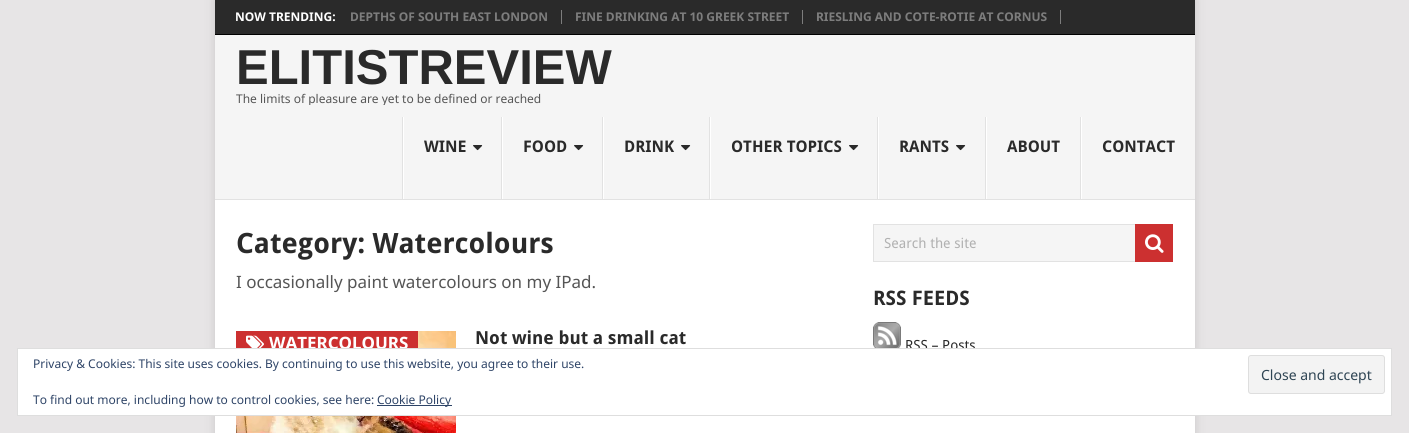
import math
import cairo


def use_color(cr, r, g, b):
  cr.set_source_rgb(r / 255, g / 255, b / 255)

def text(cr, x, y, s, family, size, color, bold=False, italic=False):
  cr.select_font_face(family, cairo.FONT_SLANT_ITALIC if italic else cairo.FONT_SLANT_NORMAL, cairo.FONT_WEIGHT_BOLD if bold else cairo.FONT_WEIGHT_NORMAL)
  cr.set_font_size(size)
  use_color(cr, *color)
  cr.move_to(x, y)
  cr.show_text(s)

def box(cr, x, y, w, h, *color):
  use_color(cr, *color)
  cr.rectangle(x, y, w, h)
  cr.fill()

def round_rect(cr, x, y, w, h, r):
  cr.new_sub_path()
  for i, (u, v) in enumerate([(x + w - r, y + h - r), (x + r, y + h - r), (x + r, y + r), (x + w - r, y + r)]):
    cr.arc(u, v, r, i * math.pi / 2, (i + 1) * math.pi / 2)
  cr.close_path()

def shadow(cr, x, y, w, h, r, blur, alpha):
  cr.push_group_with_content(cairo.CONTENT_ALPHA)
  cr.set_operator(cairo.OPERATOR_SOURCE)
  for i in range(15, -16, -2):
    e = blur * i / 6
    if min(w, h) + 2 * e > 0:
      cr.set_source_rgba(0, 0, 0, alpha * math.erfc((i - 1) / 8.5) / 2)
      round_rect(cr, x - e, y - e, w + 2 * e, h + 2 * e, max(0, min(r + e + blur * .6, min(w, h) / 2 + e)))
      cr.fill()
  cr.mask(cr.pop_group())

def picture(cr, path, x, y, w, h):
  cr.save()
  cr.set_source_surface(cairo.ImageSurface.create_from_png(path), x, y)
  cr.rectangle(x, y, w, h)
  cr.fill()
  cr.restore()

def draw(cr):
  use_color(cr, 231, 229, 230)
  cr.paint()
  use_color(cr, 50, 50, 50)
  shadow(cr, 215, 0, 980, 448, 0, 5, 0.17)
  box(cr, 215, 200, 980, 233, 255, 255, 255)
  box(cr, 215, 0, 980, 34, 42, 42, 42)
  box(cr, 215, 34, 980, 1, 0, 0, 0)
  box(cr, 561, 10, 1, 14, 125, 125, 125)
  box(cr, 802, 10, 1, 14, 125, 125, 125)
  box(cr, 1060, 10, 1, 14, 125, 125, 125)
  box(cr, 215, 35, 980, 164, 245, 245, 245)
  box(cr, 215, 199, 980, 1, 226, 226, 226)
  box(cr, 402, 117, 1, 82, 226, 226, 226)
  box(cr, 501, 117, 1, 82, 226, 226, 226)
  box(cr, 403, 117, 1, 82, 255, 255, 255)
  picture(cr, "img_01.png", 473, 145, 10, 6)
  box(cr, 602, 117, 1, 82, 226, 226, 226)
  box(cr, 502, 117, 1, 82, 255, 255, 255)
  picture(cr, "img_01.png", 574, 145, 10, 6)
  box(cr, 709, 117, 1, 82, 226, 226, 226)
  box(cr, 603, 117, 1, 82, 255, 255, 255)
  picture(cr, "img_01.png", 681, 145, 10, 6)
  box(cr, 877, 117, 1, 82, 226, 226, 226)
  box(cr, 710, 117, 1, 82, 255, 255, 255)
  picture(cr, "img_01.png", 849, 145, 10, 6)
  box(cr, 985, 117, 1, 82, 226, 226, 226)
  box(cr, 878, 117, 1, 82, 255, 255, 255)
  picture(cr, "img_01.png", 956, 145, 10, 6)
  box(cr, 1080, 117, 1, 82, 226, 226, 226)
  box(cr, 986, 117, 1, 82, 255, 255, 255)
  box(cr, 1081, 117, 1, 82, 255, 255, 255)
  picture(cr, "img_02.png", 236, 331, 220, 102)
  box(cr, 236, 331, 182, 17, 204, 48, 48)
  picture(cr, "img_03.png", 246, 335, 18, 13)
  box(cr, 874, 225, 261, 36, 245, 245, 245)
  cr.rectangle(873.5, 224.5, 299, 37)
  use_color(cr, 226, 226, 226)
  cr.set_line_width(1)
  cr.stroke()
  box(cr, 1135, 224, 38, 38, 204, 48, 48)
  picture(cr, "img_04.png", 1145, 234, 19, 19)
  picture(cr, "img_05.png", 873, 322, 28, 26)
  text(cr, 235, 21, "NOW TRENDING:", "Noto Sans", 12, (255, 255, 255), bold=True)
  text(cr, 350, 21, "DEPTHS OF SOUTH EAST LONDON", "Noto Sans", 12, (125, 125, 125), bold=True)
  text(cr, 575, 21, "FINE DRINKING AT 10 GREEK STREET", "Noto Sans", 12, (125, 125, 125), bold=True)
  text(cr, 816, 21, "RIESLING AND COTE-ROTIE AT CORNUS", "Noto Sans", 12, (125, 125, 125), bold=True)
  text(cr, 236, 84, "ELITISTREVIEW", "Liberation Sans", 49, (42, 42, 42), bold=True)
  cr.save()
  cr.rectangle(236, 43, 376, 62)
  cr.clip()
  text(cr, 236, 103, "The limits of pleasure are yet to be defined or reached", "Noto Sans", 12, (85, 85, 85))
  cr.restore()
  text(cr, 424, 152, "WINE", "Droid Sans", 16, (42, 42, 42), bold=True)
  text(cr, 523, 152, "FOOD", "Droid Sans", 16, (42, 42, 42), bold=True)
  text(cr, 624, 152, "DRINK", "Droid Sans", 16, (42, 42, 42), bold=True)
  text(cr, 731, 152, "OTHER TOPICS", "Droid Sans", 16, (42, 42, 42), bold=True)
  text(cr, 899, 152, "RANTS", "Droid Sans", 16, (42, 42, 42), bold=True)
  text(cr, 1007, 152, "ABOUT", "Droid Sans", 16, (42, 42, 42), bold=True)
  text(cr, 1102, 152, "CONTACT", "Droid Sans", 16, (42, 42, 42), bold=True)
  text(cr, 236, 253, "Category: Watercolours", "Droid Sans", 28, (42, 42, 42), bold=True)
  text(cr, 236, 288, "I occasionally paint watercolours on my IPad.", "Noto Sans", 17, (85, 85, 85))
  text(cr, 269, 349, "WATERCOLOURS", "Noto Sans", 17, (255, 255, 255), bold=True)
  text(cr, 475, 344, "Not wine but a small cat", "Droid Sans", 18, (42, 42, 42), bold=True)
  text(cr, 884, 248, "Search the site", "Droid Sans", 14, (177, 177, 177))
  text(cr, 873, 305, "RSS FEEDS", "Droid Sans", 20, (42, 42, 42), bold=True)
  text(cr, 905, 350, "RSS – Posts", "Droid Sans", 14, (42, 42, 42))
  use_color(cr, 255, 255, 255)
  cr.rectangle(17.5, 348.5, 1374, 67)
  cr.fill_preserve()
  use_color(cr, 222, 222, 222)
  cr.stroke()
  text(cr, 33, 368, "Privacy & Cookies: This site uses cookies. By continuing to use this website, you agree to their use.", "Noto Sans", 12, (46, 68, 103))
  use_color(cr, 243, 243, 243)
  round_rect(cr, 1248.5, 355.5, 136, 38, 2.5)
  cr.fill_preserve()
  use_color(cr, 222, 222, 222)
  cr.stroke()
  text(cr, 1261, 380, "Close and accept", "Noto Sans", 14, (46, 68, 83))
  text(cr, 33, 404, "To find out more, including how to control cookies, see here:", "Noto Sans", 12, (46, 68, 103))
  box(cr, 377, 405, 75, 1, 46, 68, 103)
  text(cr, 377, 404, "Cookie Policy", "Noto Sans", 12, (46, 68, 103))


surface = cairo.ImageSurface(cairo.FORMAT_RGB24, 1409, 433)
cr = cairo.Context(surface)
options = cairo.FontOptions()
options.set_hint_metrics(cairo.HINT_METRICS_OFF)
options.set_hint_style(cairo.HINT_STYLE_NONE)
cr.set_font_options(options)
cr.set_miter_limit(4)
draw(cr)
surface.write_to_png("out.png")
